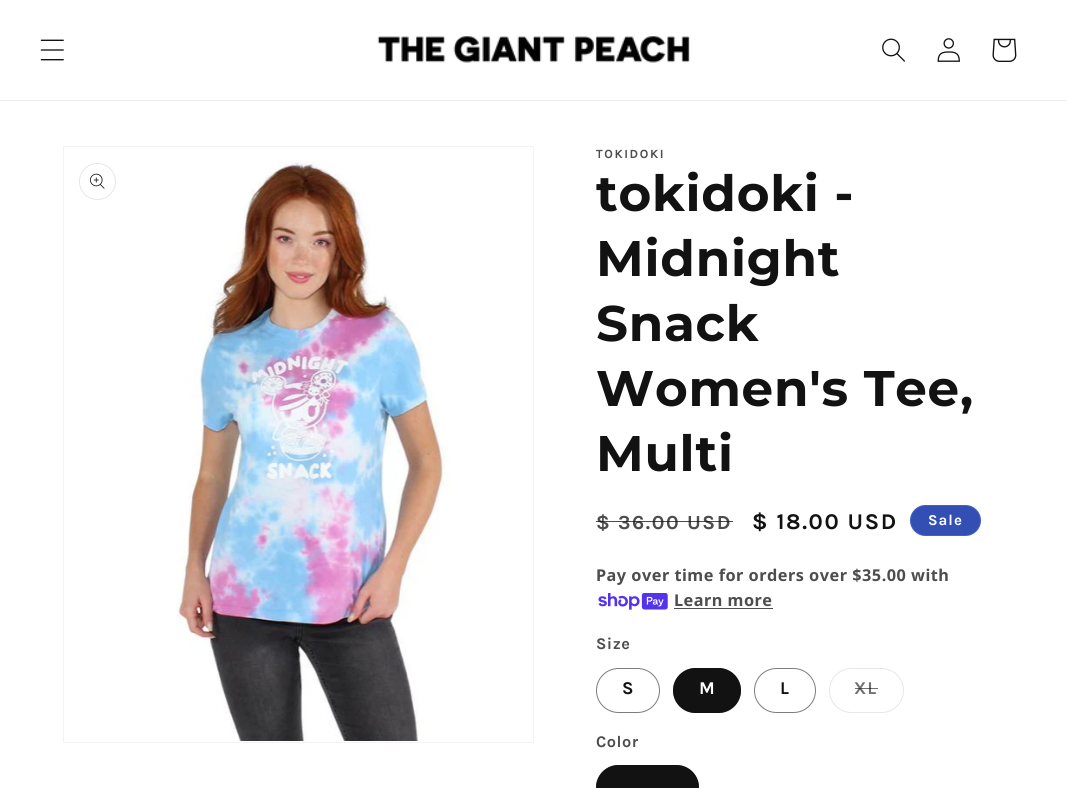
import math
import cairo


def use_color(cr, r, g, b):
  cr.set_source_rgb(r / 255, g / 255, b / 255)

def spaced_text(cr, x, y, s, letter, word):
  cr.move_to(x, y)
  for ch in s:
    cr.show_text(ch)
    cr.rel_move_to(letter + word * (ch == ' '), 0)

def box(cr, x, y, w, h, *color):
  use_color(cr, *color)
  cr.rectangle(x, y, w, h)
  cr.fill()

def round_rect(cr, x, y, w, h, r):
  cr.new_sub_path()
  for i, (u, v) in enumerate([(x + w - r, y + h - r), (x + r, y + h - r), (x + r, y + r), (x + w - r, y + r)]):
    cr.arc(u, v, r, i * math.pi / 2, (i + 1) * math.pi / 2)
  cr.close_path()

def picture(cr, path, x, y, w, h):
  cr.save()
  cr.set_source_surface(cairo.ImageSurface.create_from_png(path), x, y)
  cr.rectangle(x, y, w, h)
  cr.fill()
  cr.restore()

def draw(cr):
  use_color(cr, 255, 255, 255)
  cr.paint()
  box(cr, 0, 100, 1066, 1, 236, 236, 236)
  picture(cr, "img_01.png", 40, 39, 24, 22)
  picture(cr, "img_02.png", 377, 36, 313, 27)
  picture(cr, "img_03.png", 882, 38, 23, 24)
  picture(cr, "img_04.png", 937, 38, 23, 24)
  picture(cr, "img_05.png", 992, 38, 25, 24)
  cr.rectangle(63.5, 146.5, 470, 596)
  use_color(cr, 243, 243, 243)
  cr.set_line_width(1)
  cr.stroke()
  cr.arc(97.5, 181.5, 18, 0, 2 * math.pi)
  use_color(cr, 231, 231, 231)
  cr.stroke()
  picture(cr, "img_06.png", 90, 173, 15, 16)
  picture(cr, "img_07.png", 176, 161, 277, 580)
  use_color(cr, 51, 79, 180)
  round_rect(cr, 910, 505, 71, 31, 15.5)
  cr.fill()
  round_rect(cr, 910.5, 505.5, 70, 30, 15)
  cr.set_source_rgba(1, 1, 1, 0.1)
  cr.stroke()
  picture(cr, "img_08.png", 598, 593, 70, 17)
  box(cr, 674, 608, 99, 1, 77, 77, 77)
  round_rect(cr, 596.5, 668.5, 63, 44, 22)
  use_color(cr, 125, 125, 125)
  cr.stroke()
  use_color(cr, 18, 18, 18)
  round_rect(cr, 673, 668, 68, 45, 22.5)
  cr.fill()
  round_rect(cr, 673.5, 668.5, 67, 44, 22)
  cr.set_source_rgba(0.071, 0.071, 0.071, 0.55)
  cr.stroke()
  round_rect(cr, 754.5, 668.5, 61, 44, 22)
  use_color(cr, 125, 125, 125)
  cr.stroke()
  round_rect(cr, 829.5, 668.5, 74, 44, 22)
  use_color(cr, 231, 231, 231)
  cr.stroke()
  use_color(cr, 18, 18, 18)
  round_rect(cr, 596, 765, 103, 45, 22.5)
  cr.fill()
  round_rect(cr, 596.5, 765.5, 102, 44, 22)
  cr.set_source_rgba(0.071, 0.071, 0.071, 0.55)
  cr.stroke()
  cr.select_font_face("Karla", cairo.FONT_SLANT_NORMAL, cairo.FONT_WEIGHT_BOLD)
  cr.set_font_size(12.5)
  use_color(cr, 77, 77, 77)
  spaced_text(cr, 596, 158, "TOKIDOKI", 1.6, 0)
  cr.select_font_face("Montserrat", cairo.FONT_SLANT_NORMAL, cairo.FONT_WEIGHT_BOLD)
  cr.set_font_size(50)
  use_color(cr, 18, 18, 18)
  spaced_text(cr, 596, 211, "tokidoki -", 0.75, 0)
  spaced_text(cr, 596, 276, "Midnight", 0.75, 0)
  spaced_text(cr, 596, 341, "Snack", 0.75, 0)
  spaced_text(cr, 596, 406, "Women's Tee,", 0.75, 0)
  spaced_text(cr, 596, 471, "Multi", 0.75, 0)
  cr.select_font_face("Karla", cairo.FONT_SLANT_NORMAL, cairo.FONT_WEIGHT_BOLD)
  cr.set_font_size(20)
  use_color(cr, 77, 77, 77)
  spaced_text(cr, 596, 529, "$ 36.00 USD", 1.6, 0)
  cr.set_source_rgba(0.071, 0.071, 0.071, 0.75)
  cr.rectangle(596, 521, 137, 1)
  cr.fill()
  cr.set_font_size(22.5)
  use_color(cr, 18, 18, 18)
  spaced_text(cr, 752, 529, "$ 18.00 USD", 1.6, 0)
  cr.set_font_size(15)
  use_color(cr, 255, 255, 255)
  spaced_text(cr, 928, 525, "Sale", 1, 0)
  cr.select_font_face("Noto Sans", cairo.FONT_SLANT_NORMAL, cairo.FONT_WEIGHT_BOLD)
  cr.set_font_size(16.25)
  use_color(cr, 77, 77, 77)
  spaced_text(cr, 596, 581, "Pay over time for orders over $35.00 with", 0.5, 0)
  spaced_text(cr, 674, 606, "Learn more", 0.5, 0)
  cr.select_font_face("Karla", cairo.FONT_SLANT_NORMAL, cairo.FONT_WEIGHT_BOLD)
  spaced_text(cr, 596, 649, "Size", 0.5, 0)
  cr.set_font_size(18)
  use_color(cr, 18, 18, 18)
  spaced_text(cr, 622, 694, "S", 1, 0)
  use_color(cr, 255, 255, 255)
  spaced_text(cr, 699, 694, "M", 1, 0)
  use_color(cr, 18, 18, 18)
  spaced_text(cr, 780, 694, "L", 1, 0)
  use_color(cr, 113, 113, 113)
  spaced_text(cr, 854, 694, "XL", 1, 0)
  cr.set_source_rgba(0.071, 0.071, 0.071, 0.6)
  cr.rectangle(855, 688, 23, 1)
  cr.fill()
  cr.set_font_size(16.25)
  use_color(cr, 77, 77, 77)
  spaced_text(cr, 596, 747, "Color", 0.5, 0)


surface = cairo.ImageSurface(cairo.FORMAT_RGB24, 1066, 788)
cr = cairo.Context(surface)
options = cairo.FontOptions()
options.set_hint_metrics(cairo.HINT_METRICS_OFF)
options.set_hint_style(cairo.HINT_STYLE_NONE)
cr.set_font_options(options)
cr.set_miter_limit(4)
draw(cr)
surface.write_to_png("out.png")
